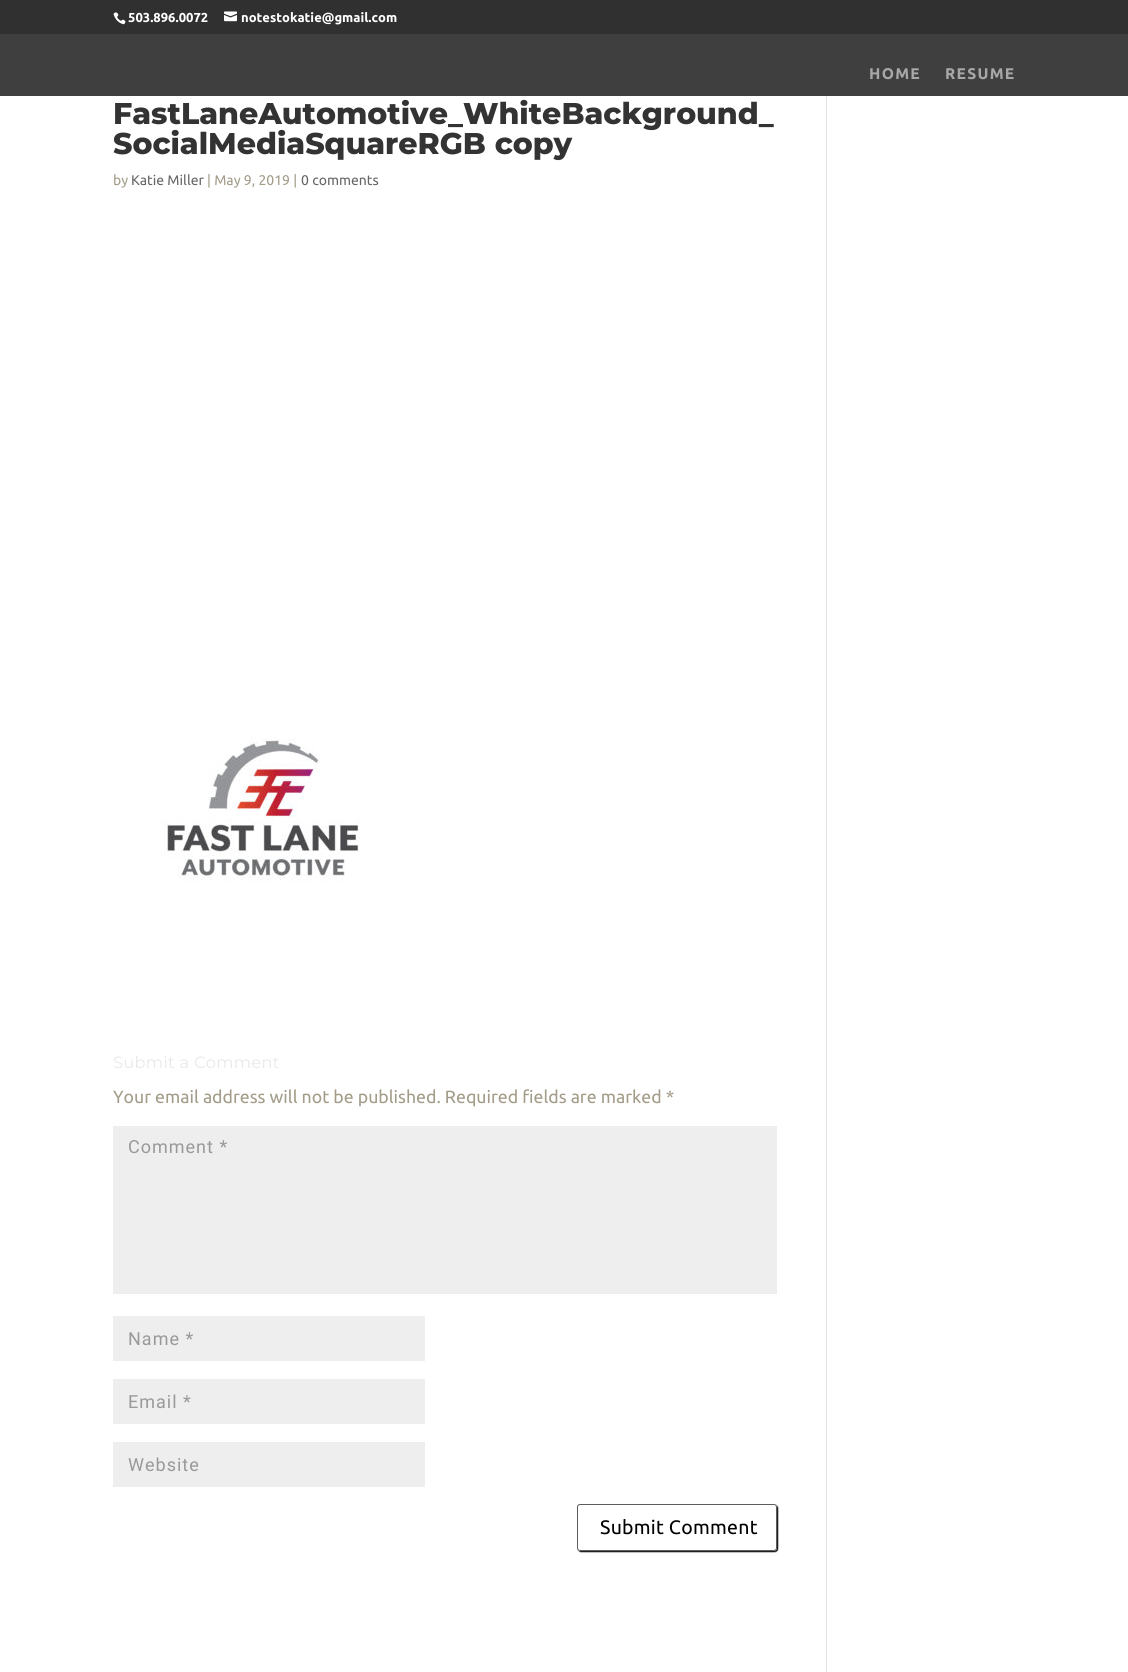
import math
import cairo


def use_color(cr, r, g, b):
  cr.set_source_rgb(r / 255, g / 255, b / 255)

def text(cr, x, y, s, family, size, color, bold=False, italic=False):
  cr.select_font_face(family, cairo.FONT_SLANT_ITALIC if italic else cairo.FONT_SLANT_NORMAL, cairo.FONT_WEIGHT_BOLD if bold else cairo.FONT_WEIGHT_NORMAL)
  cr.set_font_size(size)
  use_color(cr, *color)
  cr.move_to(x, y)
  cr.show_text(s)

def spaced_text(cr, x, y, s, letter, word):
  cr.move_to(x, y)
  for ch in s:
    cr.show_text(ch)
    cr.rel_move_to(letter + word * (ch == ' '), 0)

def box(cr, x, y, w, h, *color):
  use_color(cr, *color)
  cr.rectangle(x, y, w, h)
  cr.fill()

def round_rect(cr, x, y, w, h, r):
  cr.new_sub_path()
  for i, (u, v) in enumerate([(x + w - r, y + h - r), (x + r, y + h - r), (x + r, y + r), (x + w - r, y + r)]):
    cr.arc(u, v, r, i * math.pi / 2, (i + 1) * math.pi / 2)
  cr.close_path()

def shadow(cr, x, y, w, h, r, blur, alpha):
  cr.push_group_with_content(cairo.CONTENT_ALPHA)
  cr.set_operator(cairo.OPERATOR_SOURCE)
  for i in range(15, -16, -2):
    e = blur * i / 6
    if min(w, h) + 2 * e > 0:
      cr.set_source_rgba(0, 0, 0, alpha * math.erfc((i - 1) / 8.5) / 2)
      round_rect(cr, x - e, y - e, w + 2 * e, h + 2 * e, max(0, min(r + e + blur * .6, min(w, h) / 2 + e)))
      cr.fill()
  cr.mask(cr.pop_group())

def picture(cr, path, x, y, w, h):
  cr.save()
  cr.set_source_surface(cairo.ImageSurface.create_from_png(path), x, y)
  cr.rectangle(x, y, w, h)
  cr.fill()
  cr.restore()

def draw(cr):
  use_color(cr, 255, 255, 255)
  cr.paint()
  box(cr, 0, 0, 1128, 34, 48, 48, 48)
  picture(cr, "img_01.png", 113, 12, 13, 13)
  picture(cr, "img_02.png", 224, 11, 13, 11)
  box(cr, 0, 34, 1128, 62, 63, 63, 63)
  picture(cr, "img_03.png", 161, 738, 200, 144)
  box(cr, 113, 1126, 664, 168, 238, 238, 238)
  box(cr, 113, 1316, 312, 45, 238, 238, 238)
  box(cr, 113, 1379, 312, 45, 238, 238, 238)
  box(cr, 113, 1442, 312, 45, 238, 238, 238)
  cr.save()
  cr.set_fill_rule(cairo.FILL_RULE_EVEN_ODD)
  cr.new_path()
  cr.move_to(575, 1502)
  cr.line_to(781, 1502)
  cr.line_to(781, 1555)
  cr.line_to(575, 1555)
  cr.close_path()
  cr.move_to(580, 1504)
  cr.line_to(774, 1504)
  cr.curve_to(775.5, 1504, 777, 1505.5, 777, 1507)
  cr.line_to(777, 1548)
  cr.curve_to(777, 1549.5, 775.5, 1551, 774, 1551)
  cr.line_to(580, 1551)
  cr.curve_to(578.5, 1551, 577, 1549.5, 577, 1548)
  cr.line_to(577, 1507)
  cr.curve_to(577, 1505.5, 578.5, 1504, 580, 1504)
  cr.close_path()
  cr.clip()
  use_color(cr, 0, 0, 0)
  shadow(cr, 578, 1505, 200, 47, 3, 0.5, 1)
  cr.restore()
  round_rect(cr, 577.5, 1504.5, 199, 46, 2.5)
  use_color(cr, 93, 92, 92)
  cr.set_line_width(1)
  cr.stroke()
  box(cr, 826, 96, 1, 1576, 226, 226, 226)
  text(cr, 128, 22, "503.896.0072", "Ubuntu", 13, (255, 255, 255), bold=True)
  text(cr, 241, 22, "notestokatie@gmail.com", "Ubuntu", 13, (255, 255, 255), bold=True)
  cr.set_font_size(15.5)
  use_color(cr, 167, 167, 167)
  spaced_text(cr, 869, 79, "HOME", 1.25, 0)
  spaced_text(cr, 945, 79, "RESUME", 1.25, 0)
  text(cr, 113, 124, "FastLaneAutomotive_WhiteBackground_", "Montserrat ExtraBold", 30, (51, 51, 51))
  text(cr, 113, 154, "SocialMediaSquareRGB copy", "Montserrat ExtraBold", 30, (51, 51, 51))
  text(cr, 113, 185, "by", "Ubuntu", 14, (163, 156, 137))
  text(cr, 131, 185, "Katie Miller", "Ubuntu", 14, (102, 102, 102))
  text(cr, 207, 185, "| May 9, 2019 |", "Ubuntu", 14, (163, 156, 137))
  text(cr, 301, 185, "0 comments", "Ubuntu", 14, (102, 102, 102))
  cr.select_font_face("Montserrat")
  cr.set_font_size(16.25)
  use_color(cr, 232, 232, 232)
  spaced_text(cr, 113, 1068, "Submit a Comment", 0.3, 0)
  text(cr, 113, 1103, "Your email address will not be published. Required fields are marked *", "Ubuntu", 17.7, (163, 156, 137))
  cr.select_font_face("Roboto")
  cr.set_font_size(18)
  use_color(cr, 153, 153, 153)
  spaced_text(cr, 128, 1153, "Comment *", 1, 0)
  spaced_text(cr, 128, 1345, "Name *", 1, 0)
  spaced_text(cr, 128, 1408, "Email *", 1, 0)
  spaced_text(cr, 128, 1471, "Website", 1, 0)
  cr.select_font_face("Ubuntu")
  cr.set_font_size(19.5)
  use_color(cr, 0, 0, 0)
  spaced_text(cr, 600, 1534, "Submit Comment", 0.25, 0)


surface = cairo.ImageSurface(cairo.FORMAT_RGB24, 1128, 1672)
cr = cairo.Context(surface)
options = cairo.FontOptions()
options.set_hint_metrics(cairo.HINT_METRICS_OFF)
options.set_hint_style(cairo.HINT_STYLE_NONE)
cr.set_font_options(options)
cr.set_miter_limit(4)
draw(cr)
surface.write_to_png("out.png")
